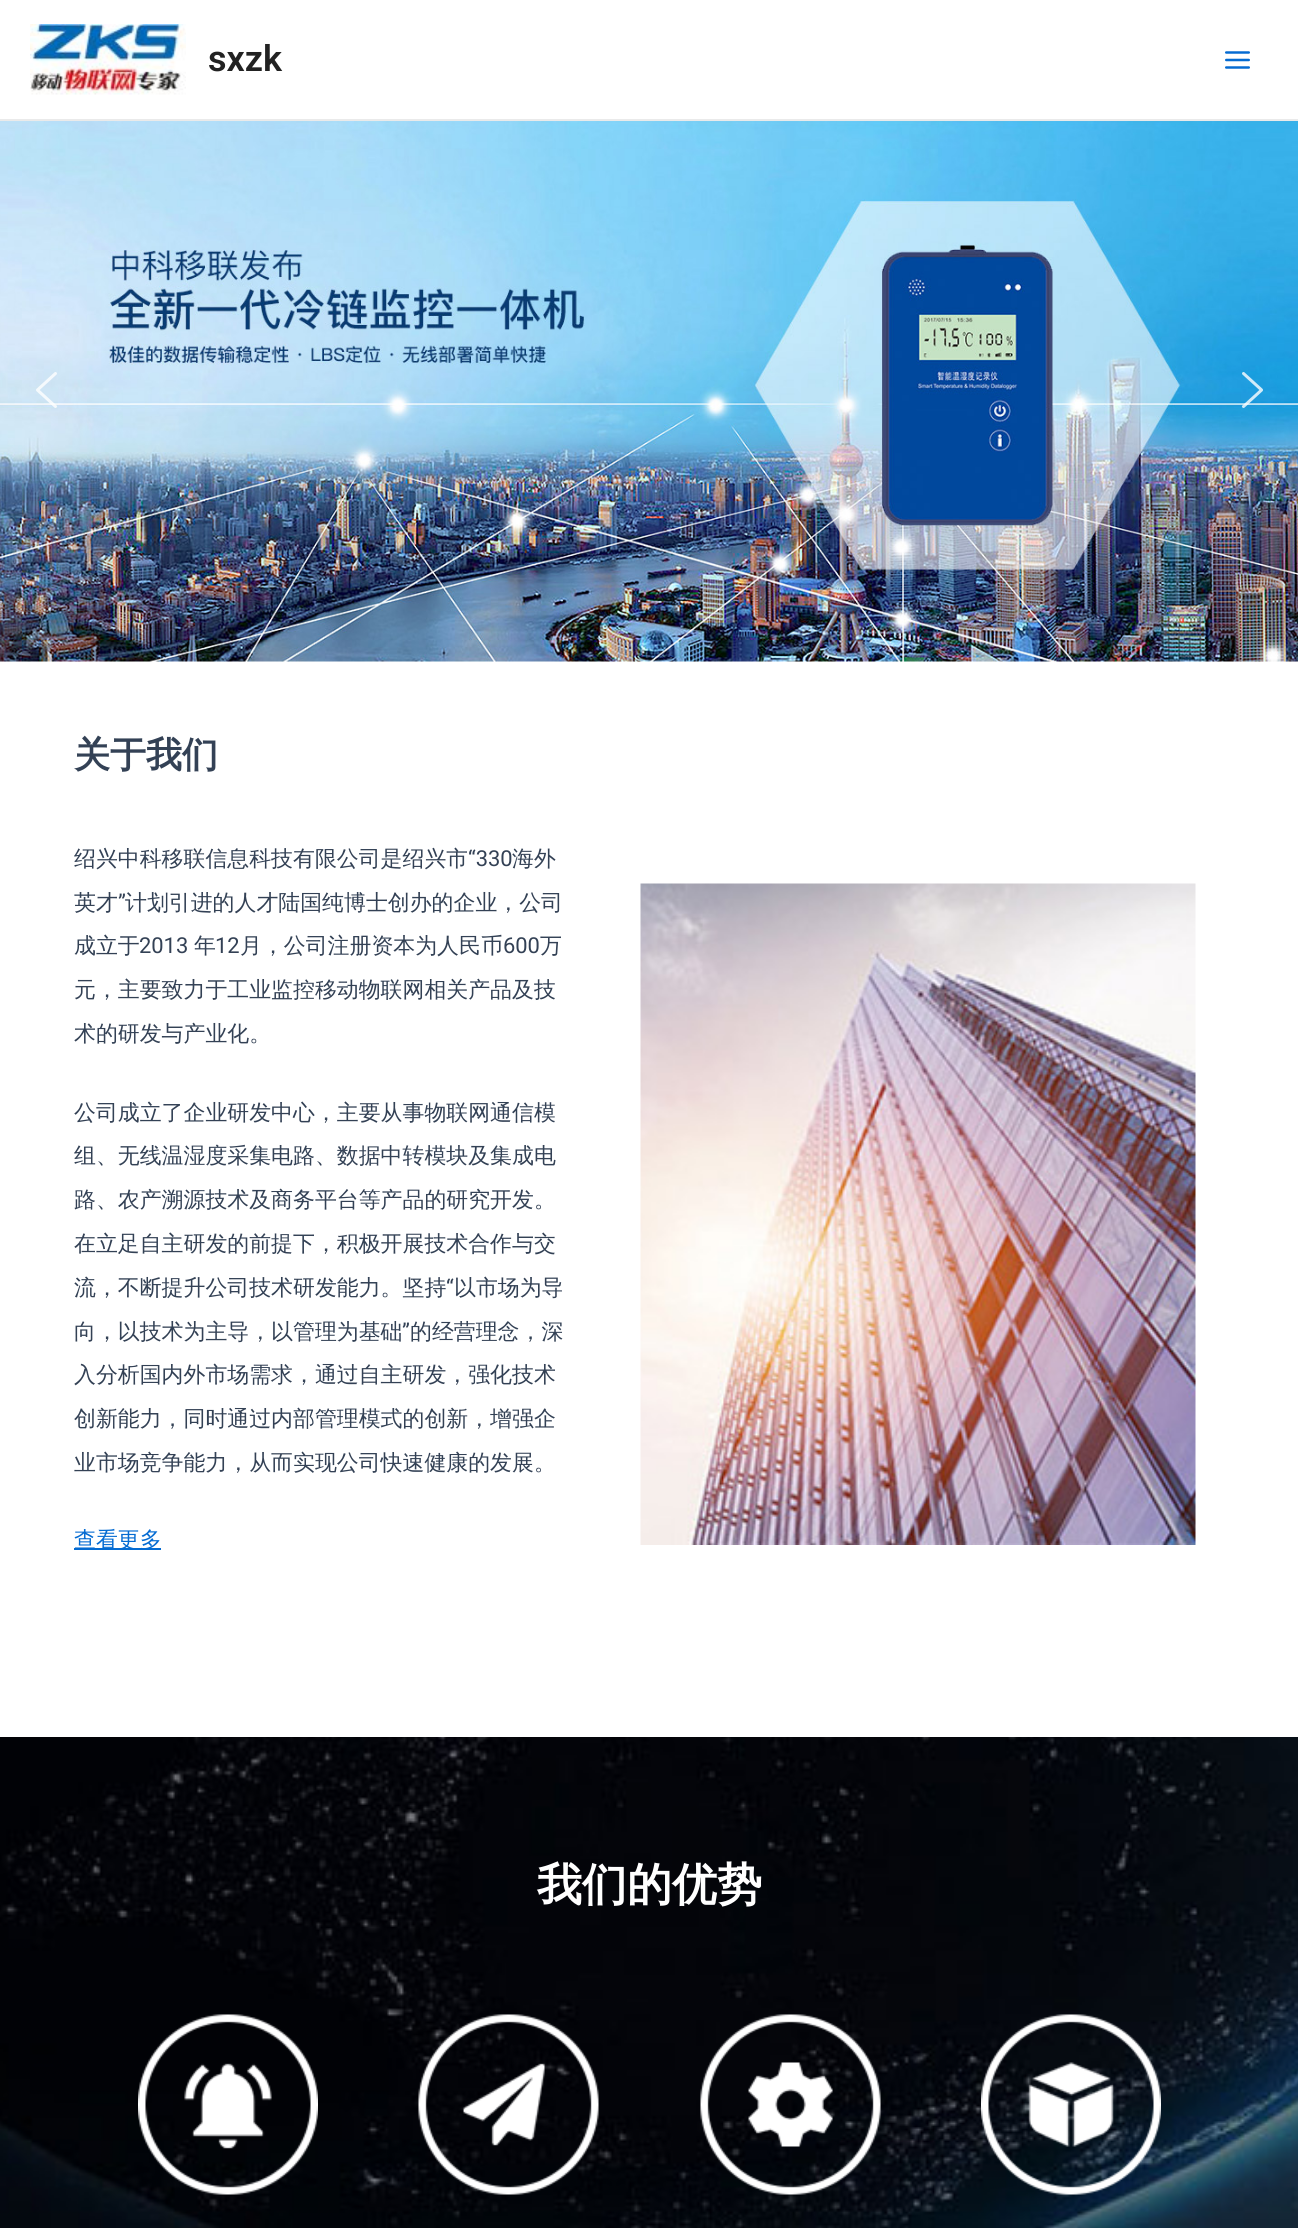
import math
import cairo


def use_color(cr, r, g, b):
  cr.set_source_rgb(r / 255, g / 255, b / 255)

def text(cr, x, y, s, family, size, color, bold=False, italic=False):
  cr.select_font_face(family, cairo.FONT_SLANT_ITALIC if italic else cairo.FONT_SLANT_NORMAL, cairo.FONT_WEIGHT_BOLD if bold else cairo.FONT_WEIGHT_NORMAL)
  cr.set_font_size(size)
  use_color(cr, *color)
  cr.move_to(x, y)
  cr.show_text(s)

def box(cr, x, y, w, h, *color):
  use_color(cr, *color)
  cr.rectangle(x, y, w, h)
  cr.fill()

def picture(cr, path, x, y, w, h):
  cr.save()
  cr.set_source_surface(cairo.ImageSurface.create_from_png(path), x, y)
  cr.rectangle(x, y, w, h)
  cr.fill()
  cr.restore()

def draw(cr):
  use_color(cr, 255, 255, 255)
  cr.paint()
  box(cr, 0, 119, 1298, 2, 234, 234, 234)
  picture(cr, "img_01.png", 30, 24, 156, 71)
  picture(cr, "img_02.png", 1225, 51, 25, 18)
  picture(cr, "img_03.png", 0, 121, 1298, 541)
  picture(cr, "img_04.png", 36, 372, 21, 36)
  picture(cr, "img_05.png", 1242, 372, 21, 36)
  box(cr, 74, 1548, 87, 2, 4, 107, 210)
  picture(cr, "img_06.png", 640, 883, 556, 662)
  picture(cr, "img_07.png", 0, 1737, 1298, 491)
  picture(cr, "img_08.png", 138, 2014, 180, 181)
  picture(cr, "img_09.png", 418, 2014, 181, 181)
  picture(cr, "img_10.png", 700, 2014, 181, 181)
  picture(cr, "img_11.png", 981, 2014, 180, 181)
  text(cr, 208, 71, "sxzk", "Roboto SemiBold", 36, (34, 34, 34))
  text(cr, 74, 767, "关于我们", "WenQuanYi Zen Hei", 36, (51, 65, 85), bold=True)
  text(cr, 74, 866, "绍兴中科移联信息科技有限公司是绍兴市", "WenQuanYi Zen Hei Medium", 21.9, (51, 65, 85))
  text(cr, 468, 866, "“330", "Roboto", 21.9, (51, 65, 85))
  text(cr, 512, 866, "海外", "WenQuanYi Zen Hei Medium", 21.9, (51, 65, 85))
  text(cr, 74, 910, "英才", "WenQuanYi Zen Hei Medium", 21.9, (51, 65, 85))
  text(cr, 118, 910, "”", "Roboto", 21.9, (51, 65, 85))
  text(cr, 125, 910, "计划引进的人才陆国纯博士创办的企业，公司", "WenQuanYi Zen Hei Medium", 21.9, (51, 65, 85))
  text(cr, 74, 953, "成立于", "WenQuanYi Zen Hei Medium", 21.9, (51, 65, 85))
  text(cr, 139, 953, "2013", "Roboto", 21.9, (51, 65, 85))
  text(cr, 194, 953, "年", "WenQuanYi Zen Hei Medium", 21.9, (51, 65, 85))
  text(cr, 215, 953, "12", "Roboto", 21.9, (51, 65, 85))
  text(cr, 240, 953, "月，公司注册资本为人民币", "WenQuanYi Zen Hei Medium", 21.9, (51, 65, 85))
  text(cr, 503, 953, "600", "Roboto", 21.9, (51, 65, 85))
  text(cr, 540, 953, "万", "WenQuanYi Zen Hei Medium", 21.9, (51, 65, 85))
  text(cr, 74, 997, "元，主要致力于工业监控移动物联网相关产品及技", "WenQuanYi Zen Hei Medium", 21.9, (51, 65, 85))
  text(cr, 74, 1041, "术的研发与产业化。", "WenQuanYi Zen Hei Medium", 21.9, (51, 65, 85))
  text(cr, 74, 1120, "公司成立了企业研发中心，主要从事物联网通信模", "WenQuanYi Zen Hei Medium", 21.9, (51, 65, 85))
  text(cr, 74, 1163, "组、无线温湿度采集电路、数据中转模块及集成电", "WenQuanYi Zen Hei Medium", 21.9, (51, 65, 85))
  text(cr, 74, 1207, "路、农产溯源技术及商务平台等产品的研究开发。", "WenQuanYi Zen Hei Medium", 21.9, (51, 65, 85))
  text(cr, 74, 1251, "在立足自主研发的前提下，积极开展技术合作与交", "WenQuanYi Zen Hei Medium", 21.9, (51, 65, 85))
  text(cr, 74, 1295, "流，不断提升公司技术研发能力。坚持", "WenQuanYi Zen Hei Medium", 21.9, (51, 65, 85))
  text(cr, 446, 1295, "“", "Roboto", 21.9, (51, 65, 85))
  text(cr, 454, 1295, "以市场为导", "WenQuanYi Zen Hei Medium", 21.9, (51, 65, 85))
  text(cr, 74, 1339, "向，以技术为主导，以管理为基础", "WenQuanYi Zen Hei Medium", 21.9, (51, 65, 85))
  text(cr, 402, 1339, "”", "Roboto", 21.9, (51, 65, 85))
  text(cr, 410, 1339, "的经营理念，深", "WenQuanYi Zen Hei Medium", 21.9, (51, 65, 85))
  text(cr, 74, 1382, "入分析国内外市场需求，通过自主研发，强化技术", "WenQuanYi Zen Hei Medium", 21.9, (51, 65, 85))
  text(cr, 74, 1426, "创新能力，同时通过内部管理模式的创新，增强企", "WenQuanYi Zen Hei Medium", 21.9, (51, 65, 85))
  text(cr, 74, 1470, "业市场竞争能力，从而实现公司快速健康的发展。", "WenQuanYi Zen Hei Medium", 21.9, (51, 65, 85))
  text(cr, 74, 1547, "查看更多", "WenQuanYi Zen Hei Medium", 21.9, (4, 107, 210))
  text(cr, 537, 1900, "我们的优势", "WenQuanYi Zen Hei", 45, (255, 255, 255), bold=True)


surface = cairo.ImageSurface(cairo.FORMAT_RGB24, 1298, 2228)
cr = cairo.Context(surface)
options = cairo.FontOptions()
options.set_hint_metrics(cairo.HINT_METRICS_OFF)
options.set_hint_style(cairo.HINT_STYLE_NONE)
cr.set_font_options(options)
cr.set_miter_limit(4)
draw(cr)
surface.write_to_png("out.png")
